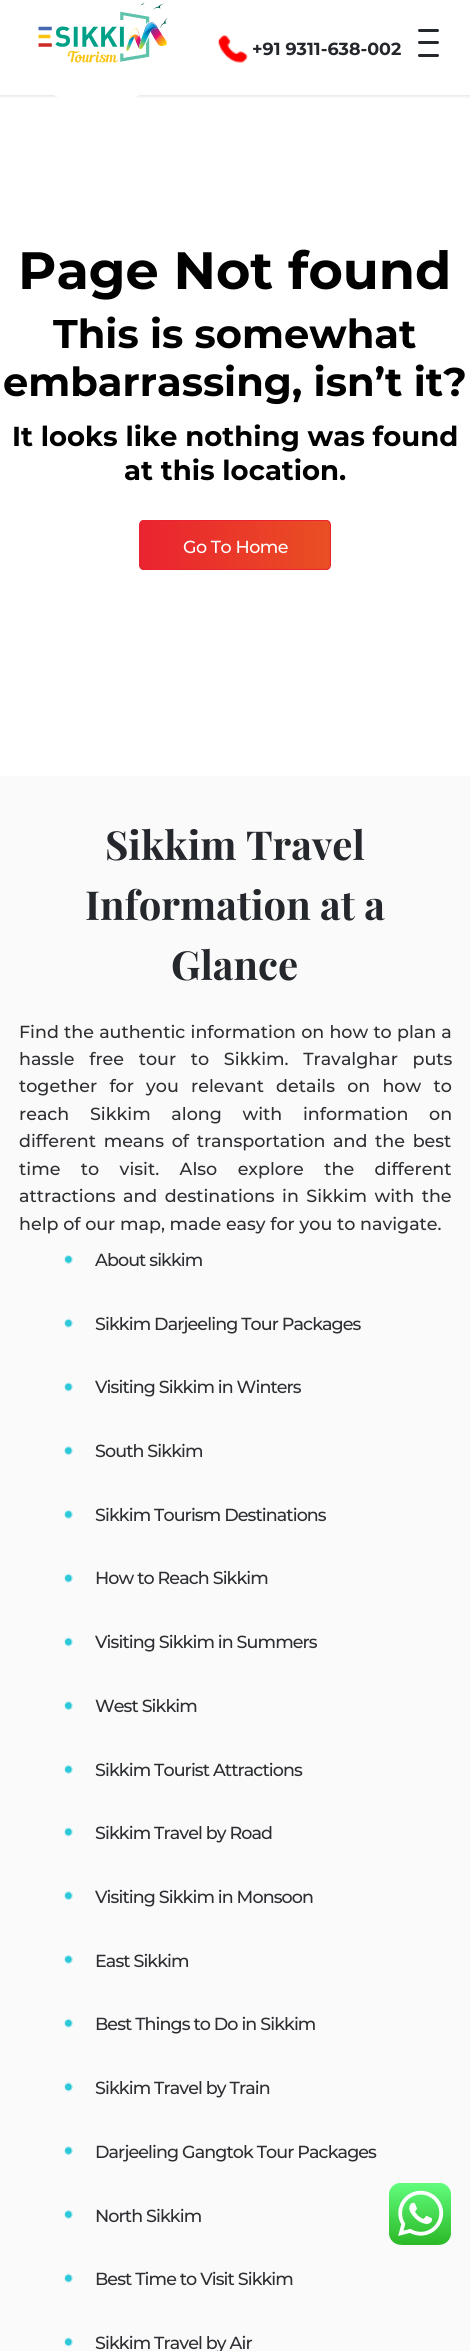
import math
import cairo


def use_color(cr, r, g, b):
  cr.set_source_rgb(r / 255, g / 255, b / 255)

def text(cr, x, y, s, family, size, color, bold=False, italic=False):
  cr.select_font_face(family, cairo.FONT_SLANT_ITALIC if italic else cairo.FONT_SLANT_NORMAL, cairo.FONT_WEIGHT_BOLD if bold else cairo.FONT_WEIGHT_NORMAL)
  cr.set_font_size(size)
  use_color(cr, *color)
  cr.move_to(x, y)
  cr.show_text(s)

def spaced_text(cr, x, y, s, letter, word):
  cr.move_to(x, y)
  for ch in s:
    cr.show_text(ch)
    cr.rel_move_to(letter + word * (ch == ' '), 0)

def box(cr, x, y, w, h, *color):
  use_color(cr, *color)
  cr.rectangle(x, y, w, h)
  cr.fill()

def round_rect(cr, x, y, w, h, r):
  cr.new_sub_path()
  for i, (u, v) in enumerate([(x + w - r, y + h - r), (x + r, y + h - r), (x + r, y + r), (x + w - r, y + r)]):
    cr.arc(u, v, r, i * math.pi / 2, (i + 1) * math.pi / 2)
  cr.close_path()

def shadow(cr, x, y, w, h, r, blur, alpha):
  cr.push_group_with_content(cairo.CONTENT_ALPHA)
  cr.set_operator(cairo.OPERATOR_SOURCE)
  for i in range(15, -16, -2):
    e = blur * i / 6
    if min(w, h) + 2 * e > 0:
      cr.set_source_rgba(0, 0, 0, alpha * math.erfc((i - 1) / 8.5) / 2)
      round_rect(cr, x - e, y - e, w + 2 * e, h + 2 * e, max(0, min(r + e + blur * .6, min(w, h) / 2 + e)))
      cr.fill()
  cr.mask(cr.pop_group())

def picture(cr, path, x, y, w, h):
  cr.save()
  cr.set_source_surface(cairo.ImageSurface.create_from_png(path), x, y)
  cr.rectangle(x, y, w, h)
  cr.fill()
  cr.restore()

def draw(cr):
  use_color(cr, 255, 255, 255)
  cr.paint()
  cr.save()
  cr.rectangle(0, 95, 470, 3)
  cr.clip()
  use_color(cr, 36, 39, 44)
  shadow(cr, 0, 1, 470, 95, 0, 2, 0.15)
  cr.restore()
  use_color(cr, 36, 39, 44)
  round_rect(cr, 418, 29, 21, 3, 1.5)
  cr.fill()
  round_rect(cr, 418, 41, 21, 3, 1.5)
  cr.fill()
  round_rect(cr, 418, 54, 21, 3, 1.5)
  cr.fill()
  use_color(cr, 255, 255, 255)
  cr.new_path()
  cr.move_to(12, 0)
  cr.line_to(181, 0)
  cr.line_to(181, 28)
  cr.curve_to(181, 71, 143, 106, 97, 106)
  cr.curve_to(50, 106, 12, 71, 12, 28)
  cr.close_path()
  cr.fill()
  picture(cr, "img_01.png", 38, 2, 130, 61)
  picture(cr, "img_02.png", 218, 35, 30, 28)
  cr.save()
  round_rect(cr, 139, 520, 192, 50, 5)
  cr.clip()
  gradient = cairo.LinearGradient(330, 545, 140, 545)
  gradient.add_color_stop_rgba(0, 0.918, 0.31, 0.137, 1)
  gradient.add_color_stop_rgba(1, 0.918, 0.137, 0.188, 1)
  cr.set_source(gradient)
  cr.rectangle(140, 520, 190, 50)
  cr.fill()
  cr.restore()
  round_rect(cr, 139.5, 520.5, 191, 49, 4.5)
  use_color(cr, 234, 35, 48)
  cr.set_line_width(1)
  cr.stroke()
  box(cr, 0, 776, 470, 1575, 250, 250, 250)
  picture(cr, "img_03.png", 63, 1255, 10, 9)
  picture(cr, "img_04.png", 63, 1318, 10, 10)
  picture(cr, "img_05.png", 63, 1382, 10, 10)
  picture(cr, "img_06.png", 63, 1446, 10, 9)
  picture(cr, "img_03.png", 63, 1510, 10, 9)
  picture(cr, "img_04.png", 63, 1573, 10, 10)
  picture(cr, "img_05.png", 63, 1637, 10, 10)
  picture(cr, "img_06.png", 63, 1701, 10, 9)
  picture(cr, "img_03.png", 63, 1765, 10, 9)
  picture(cr, "img_05.png", 63, 1827, 10, 10)
  picture(cr, "img_06.png", 63, 1891, 10, 9)
  picture(cr, "img_03.png", 63, 1955, 10, 9)
  picture(cr, "img_04.png", 63, 2018, 10, 10)
  picture(cr, "img_05.png", 63, 2082, 10, 10)
  picture(cr, "img_06.png", 63, 2146, 10, 9)
  picture(cr, "img_03.png", 63, 2210, 10, 9)
  picture(cr, "img_04.png", 63, 2273, 10, 10)
  picture(cr, "img_05.png", 63, 2337, 10, 10)
  picture(cr, "img_07.png", 389, 2183, 62, 62)
  text(cr, 252, 55, "+91 9311-638-002", "Montserrat", 17.5, (36, 39, 44), bold=True)
  text(cr, 18, 289, "Page Not found", "Montserrat", 52.5, (0, 0, 0), bold=True)
  text(cr, 53, 348, "This is somewhat", "Montserrat", 40, (0, 0, 0), bold=True)
  text(cr, 3, 396, "embarrassing, isn’t it?", "Montserrat", 40, (0, 0, 0), bold=True)
  text(cr, 12, 446, "It looks like nothing was found", "Montserrat", 27.5, (0, 0, 0), bold=True)
  text(cr, 124, 480, "at this location.", "Montserrat", 27.5, (0, 0, 0), bold=True)
  cr.select_font_face("Montserrat Medium")
  cr.set_font_size(17.5)
  use_color(cr, 255, 255, 255)
  spaced_text(cr, 183, 553, "Go To Home", -0.5, 0)
  text(cr, 105, 860, "Sikkim Travel", "Playfair Display", 40, (36, 39, 44), bold=True)
  text(cr, 85, 920, "Information at a", "Playfair Display", 40, (36, 39, 44), bold=True)
  text(cr, 171, 980, "Glance", "Playfair Display", 40, (36, 39, 44), bold=True)
  cr.select_font_face("Montserrat Medium")
  cr.set_font_size(17.5)
  use_color(cr, 44, 46, 50)
  spaced_text(cr, 19, 1038, "Find the authentic information on how to plan a", 0, 0.5)
  spaced_text(cr, 19, 1065, "hassle free tour to Sikkim. Travalghar puts", 0, 10)
  spaced_text(cr, 19, 1092, "together for you relevant details on how to", 0, 7.5)
  spaced_text(cr, 19, 1120, "reach Sikkim along with information on", 0, 16)
  spaced_text(cr, 19, 1147, "different means of transportation and the best", 0, 3)
  spaced_text(cr, 19, 1175, "time to visit. Also explore the different", 0, 15.75)
  spaced_text(cr, 19, 1202, "attractions and destinations in Sikkim with the", 0, 2.75)
  text(cr, 19, 1230, "help of our map, made easy for you to navigate.", "Montserrat Medium", 17.5, (44, 46, 50))
  spaced_text(cr, 95, 1266, "About sikkim", -0.9, 0)
  spaced_text(cr, 95, 1330, "Sikkim Darjeeling Tour Packages", -0.9, 0)
  spaced_text(cr, 95, 1393, "Visiting Sikkim in Winters", -0.9, 0)
  spaced_text(cr, 95, 1457, "South Sikkim", -0.9, 0)
  spaced_text(cr, 95, 1521, "Sikkim Tourism Destinations", -0.9, 0)
  spaced_text(cr, 95, 1584, "How to Reach Sikkim", -0.9, 0)
  spaced_text(cr, 95, 1648, "Visiting Sikkim in Summers", -0.9, 0)
  spaced_text(cr, 95, 1712, "West Sikkim", -0.9, 0)
  spaced_text(cr, 95, 1776, "Sikkim Tourist Attractions", -0.9, 0)
  spaced_text(cr, 95, 1839, "Sikkim Travel by Road", -0.9, 0)
  spaced_text(cr, 95, 1903, "Visiting Sikkim in Monsoon", -0.9, 0)
  spaced_text(cr, 95, 1967, "East Sikkim", -0.9, 0)
  spaced_text(cr, 95, 2030, "Best Things to Do in Sikkim", -0.9, 0)
  spaced_text(cr, 95, 2094, "Sikkim Travel by Train", -0.9, 0)
  spaced_text(cr, 95, 2158, "Darjeeling Gangtok Tour Packages", -0.9, 0)
  spaced_text(cr, 95, 2222, "North Sikkim", -0.9, 0)
  spaced_text(cr, 95, 2285, "Best Time to Visit Sikkim", -0.9, 0)
  spaced_text(cr, 95, 2349, "Sikkim Travel by Air", -0.9, 0)


surface = cairo.ImageSurface(cairo.FORMAT_RGB24, 470, 2351)
cr = cairo.Context(surface)
options = cairo.FontOptions()
options.set_hint_metrics(cairo.HINT_METRICS_OFF)
options.set_hint_style(cairo.HINT_STYLE_NONE)
cr.set_font_options(options)
cr.set_miter_limit(4)
draw(cr)
surface.write_to_png("out.png")
